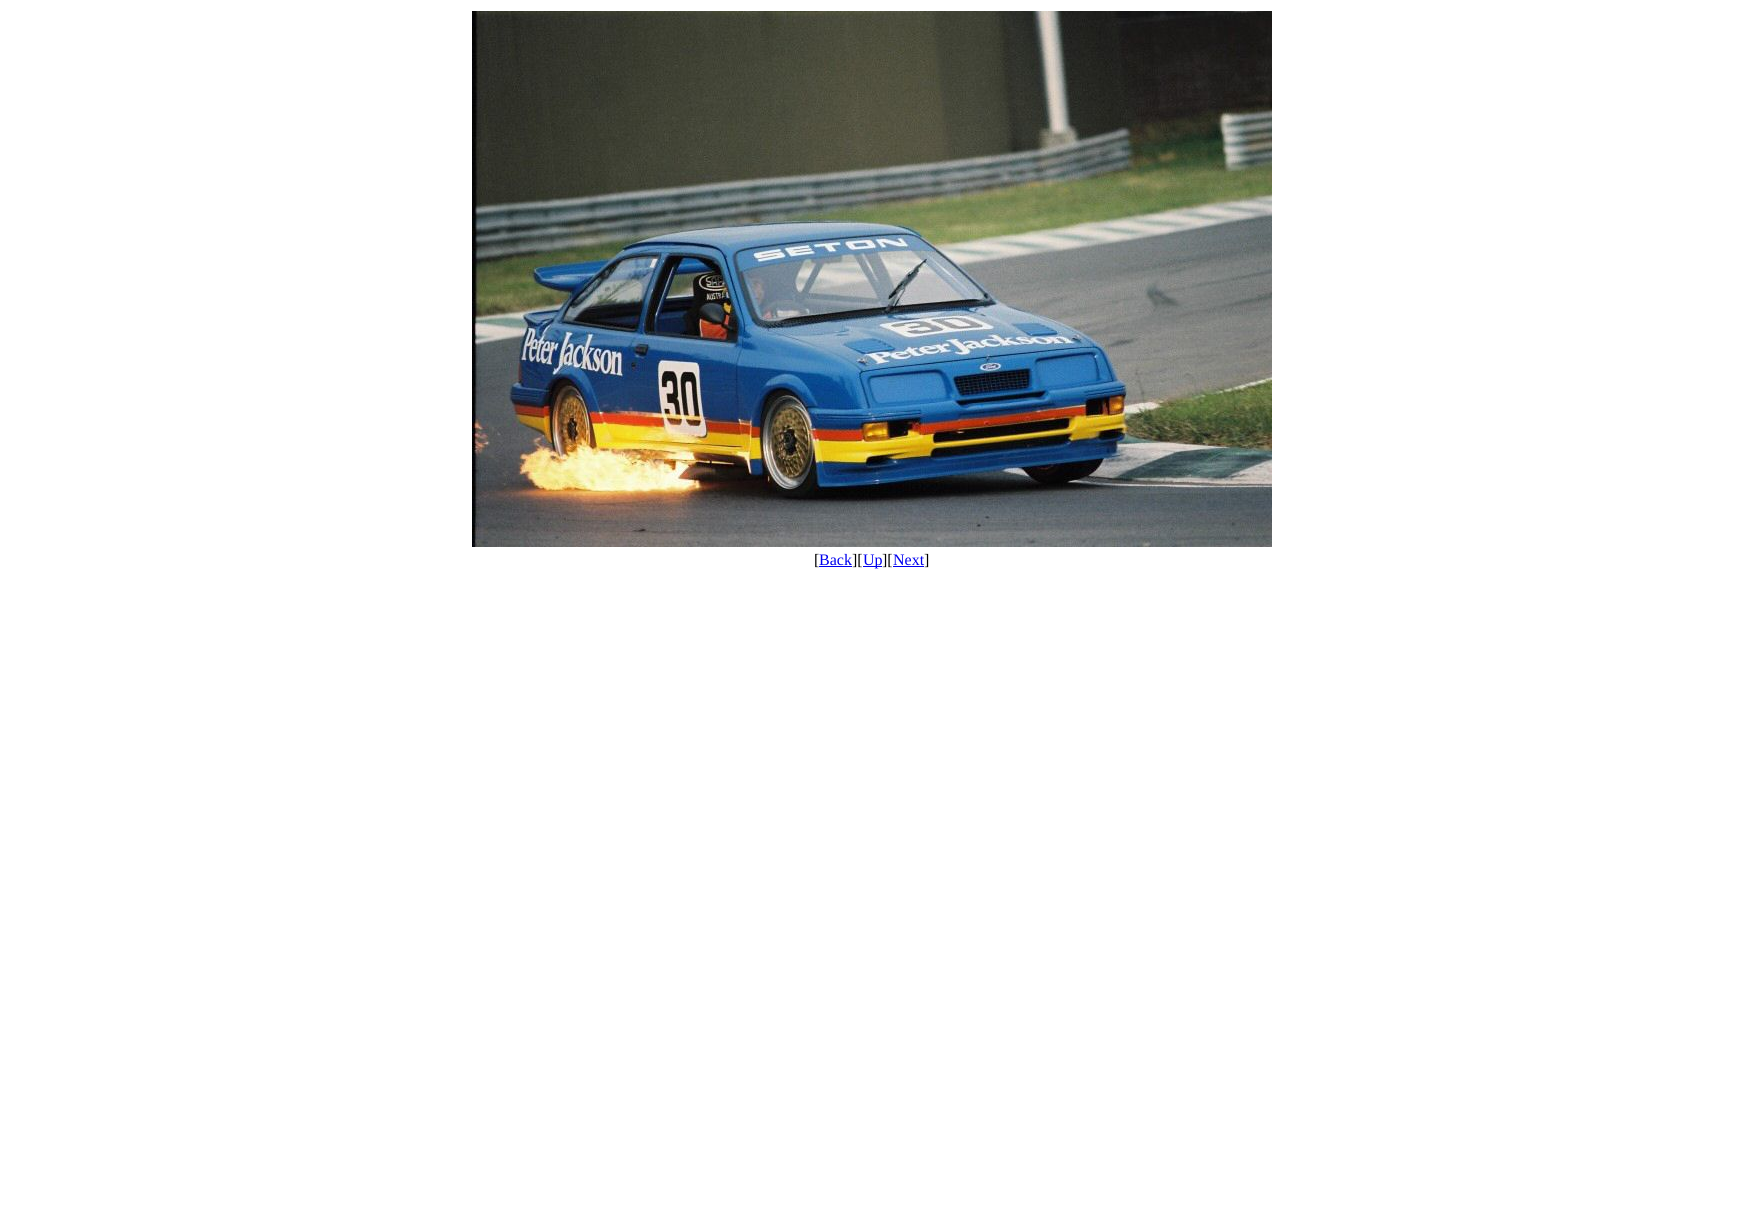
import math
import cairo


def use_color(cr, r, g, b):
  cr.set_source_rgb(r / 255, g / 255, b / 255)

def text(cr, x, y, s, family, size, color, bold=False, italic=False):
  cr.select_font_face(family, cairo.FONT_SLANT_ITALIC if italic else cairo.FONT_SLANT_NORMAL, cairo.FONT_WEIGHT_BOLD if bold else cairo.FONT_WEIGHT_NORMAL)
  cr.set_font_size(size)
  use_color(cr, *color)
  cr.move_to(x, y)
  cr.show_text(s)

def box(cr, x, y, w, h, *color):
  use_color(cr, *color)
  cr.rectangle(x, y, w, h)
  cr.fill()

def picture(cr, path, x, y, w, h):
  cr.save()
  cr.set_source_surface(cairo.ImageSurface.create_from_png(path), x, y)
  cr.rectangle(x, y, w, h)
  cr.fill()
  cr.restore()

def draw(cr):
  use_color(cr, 255, 255, 255)
  cr.paint()
  picture(cr, "img_01.png", 472, 11, 800, 536)
  box(cr, 819, 566, 33, 1, 0, 0, 238)
  box(cr, 863, 566, 19, 1, 0, 0, 238)
  box(cr, 893, 566, 31, 1, 0, 0, 238)
  text(cr, 814, 565, "[", "Liberation Serif", 16, (0, 0, 0))
  text(cr, 819, 565, "Back", "Liberation Serif", 16, (0, 0, 238))
  text(cr, 852, 565, "][", "Liberation Serif", 16, (0, 0, 0))
  text(cr, 863, 565, "Up", "Liberation Serif", 16, (0, 0, 238))
  text(cr, 882, 565, "][", "Liberation Serif", 16, (0, 0, 0))
  text(cr, 893, 565, "Next", "Liberation Serif", 16, (0, 0, 238))
  text(cr, 924, 565, "]", "Liberation Serif", 16, (0, 0, 0))


surface = cairo.ImageSurface(cairo.FORMAT_RGB24, 1743, 1216)
cr = cairo.Context(surface)
options = cairo.FontOptions()
options.set_hint_metrics(cairo.HINT_METRICS_OFF)
options.set_hint_style(cairo.HINT_STYLE_NONE)
cr.set_font_options(options)
cr.set_miter_limit(4)
draw(cr)
surface.write_to_png("out.png")
